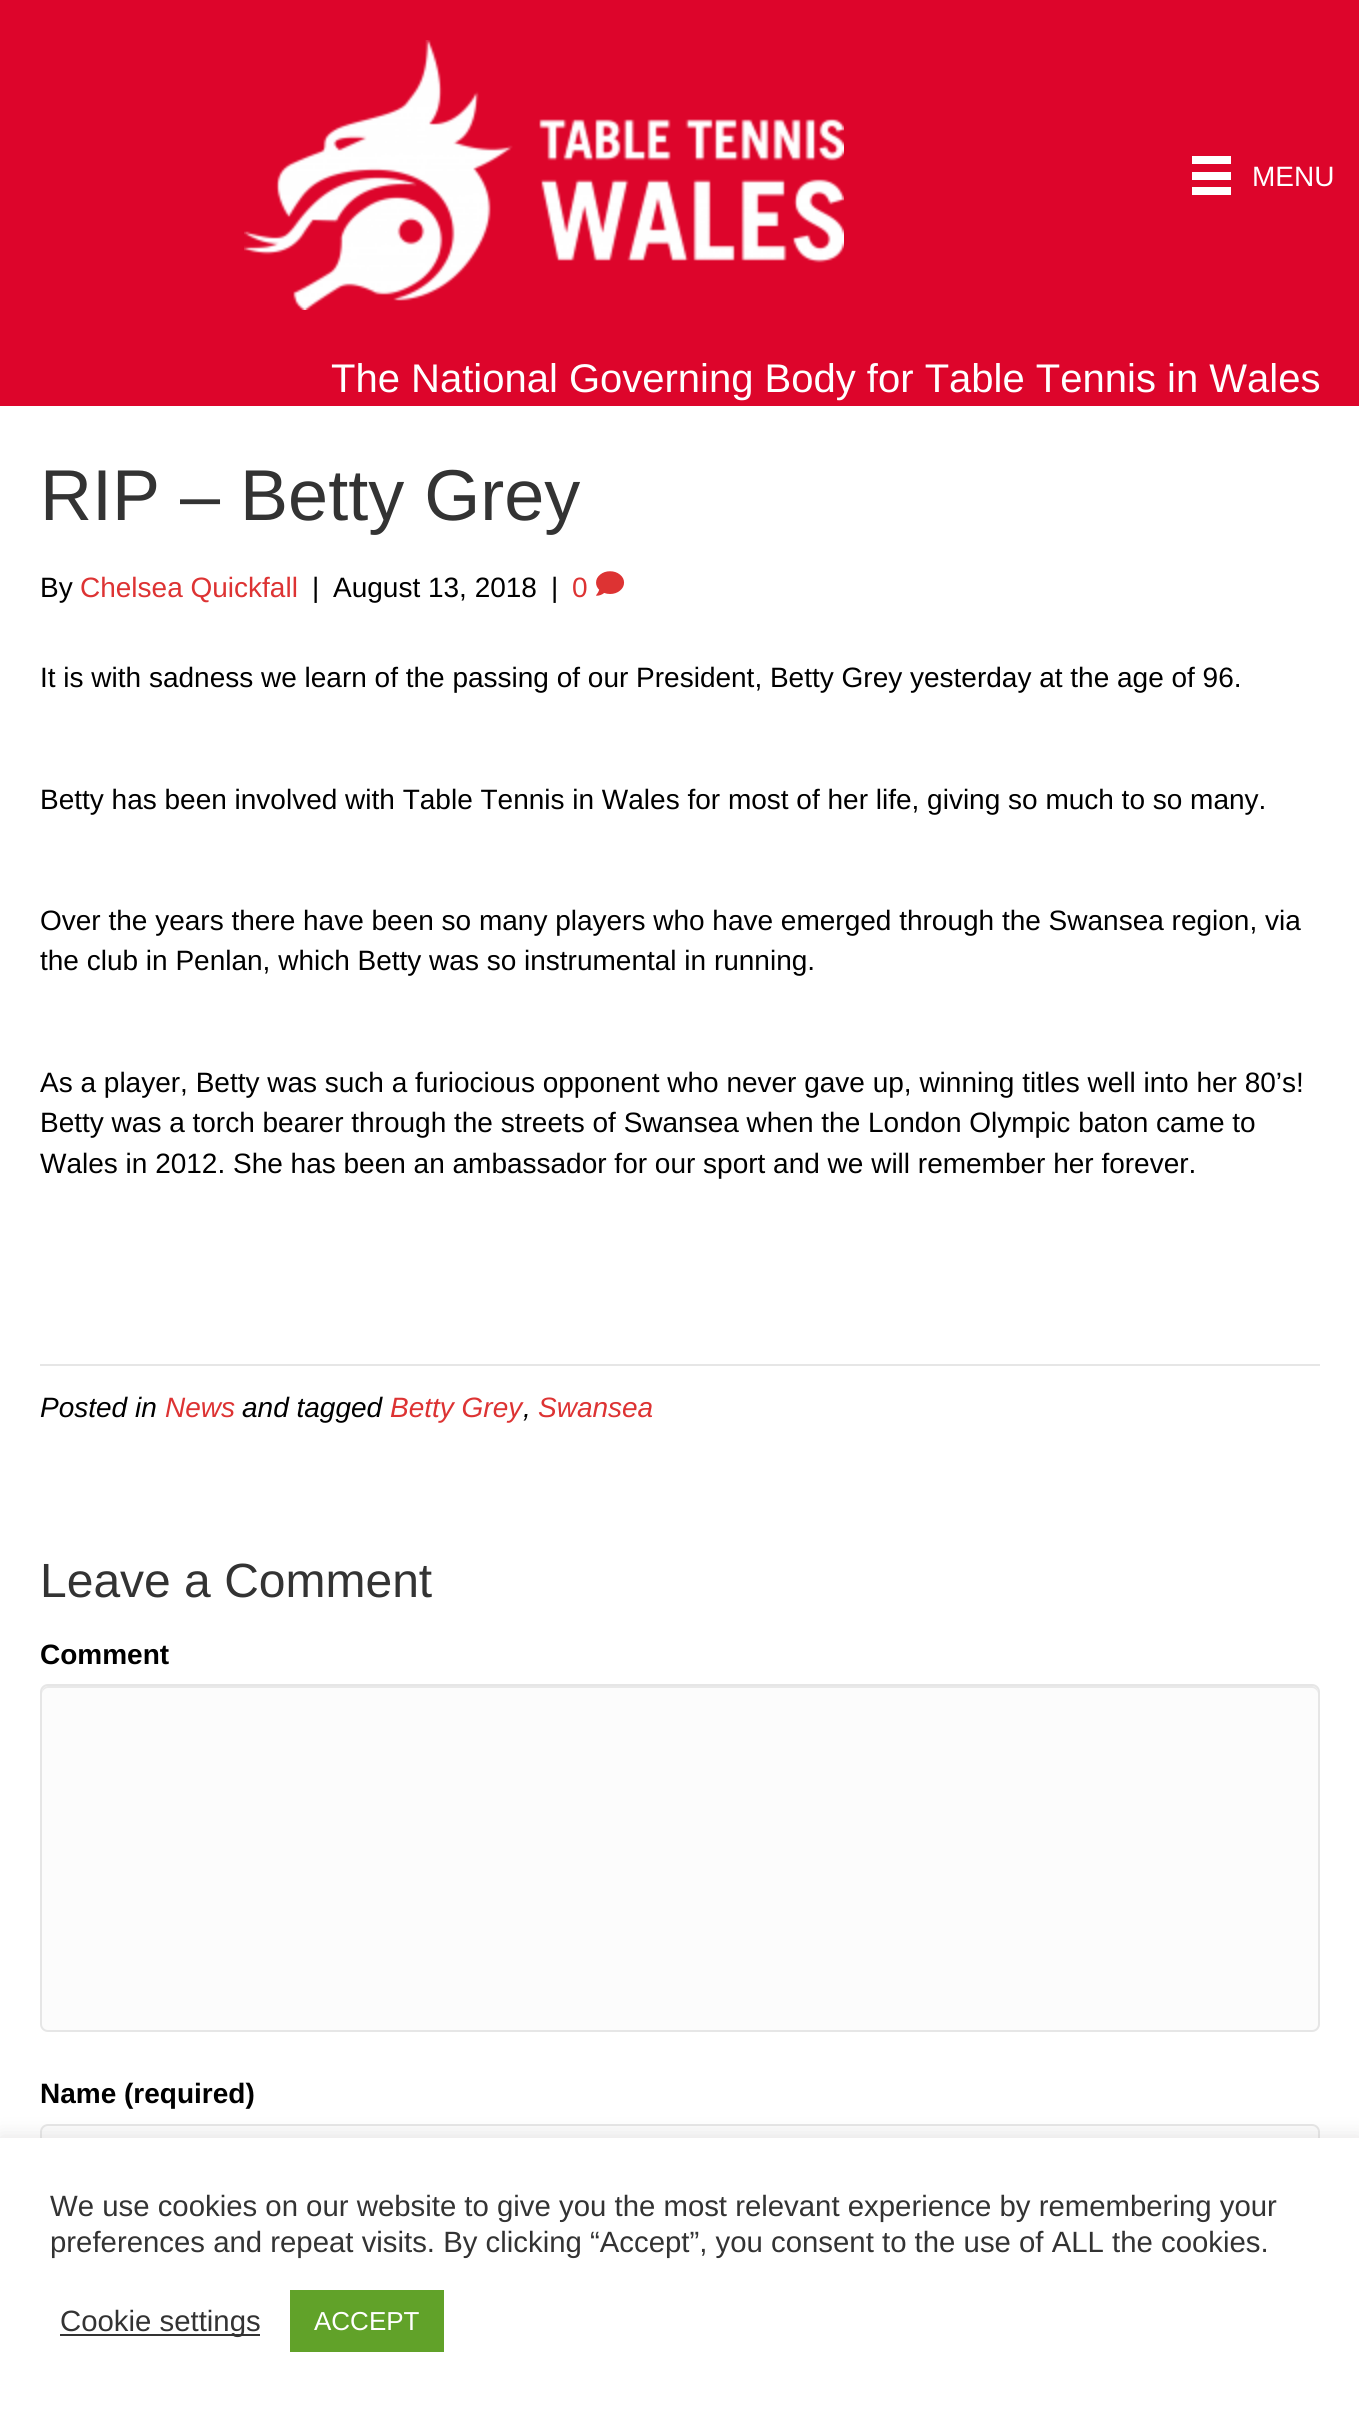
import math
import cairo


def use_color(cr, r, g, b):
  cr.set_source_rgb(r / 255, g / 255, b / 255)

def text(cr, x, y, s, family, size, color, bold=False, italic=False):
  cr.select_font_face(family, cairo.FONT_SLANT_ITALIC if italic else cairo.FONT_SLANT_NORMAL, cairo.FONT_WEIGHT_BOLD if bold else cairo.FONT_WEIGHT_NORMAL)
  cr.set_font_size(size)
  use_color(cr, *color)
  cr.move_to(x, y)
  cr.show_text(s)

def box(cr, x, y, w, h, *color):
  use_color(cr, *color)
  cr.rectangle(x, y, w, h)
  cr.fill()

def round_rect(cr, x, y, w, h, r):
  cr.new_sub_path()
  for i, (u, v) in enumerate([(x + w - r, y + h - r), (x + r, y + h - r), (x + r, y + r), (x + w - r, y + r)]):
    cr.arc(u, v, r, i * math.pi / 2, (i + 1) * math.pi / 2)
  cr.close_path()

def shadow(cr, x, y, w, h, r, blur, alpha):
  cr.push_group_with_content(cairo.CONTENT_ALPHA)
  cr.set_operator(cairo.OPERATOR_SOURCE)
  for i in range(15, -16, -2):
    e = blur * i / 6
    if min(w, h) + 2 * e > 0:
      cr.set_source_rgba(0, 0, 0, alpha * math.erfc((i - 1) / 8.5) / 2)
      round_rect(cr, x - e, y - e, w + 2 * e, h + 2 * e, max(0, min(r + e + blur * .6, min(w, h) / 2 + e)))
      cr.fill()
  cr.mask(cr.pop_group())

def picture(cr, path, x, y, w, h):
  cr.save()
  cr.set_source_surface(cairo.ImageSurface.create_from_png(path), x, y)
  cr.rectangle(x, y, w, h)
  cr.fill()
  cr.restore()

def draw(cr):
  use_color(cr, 255, 255, 255)
  cr.paint()
  box(cr, 0, 0, 1359, 406, 221, 5, 43)
  picture(cr, "img_01.png", 244, 40, 600, 270)
  box(cr, 1192, 156, 39, 8, 255, 255, 255)
  box(cr, 1192, 172, 39, 8, 255, 255, 255)
  box(cr, 1192, 187, 39, 8, 255, 255, 255)
  picture(cr, "img_02.png", 596, 571, 29, 25)
  box(cr, 40, 1364, 1280, 2, 230, 230, 230)
  use_color(cr, 252, 252, 252)
  round_rect(cr, 40, 1684, 1280, 348, 8)
  cr.fill()
  use_color(cr, 233, 233, 233)
  cr.new_path()
  cr.move_to(48, 1688)
  cr.line_to(1312, 1688)
  cr.curve_to(1315, 1688, 1318, 1691, 1318, 1694)
  cr.line_to(1318, 1692)
  cr.curve_to(1318, 1689, 1315, 1686, 1312, 1686)
  cr.line_to(48, 1686)
  cr.curve_to(45, 1686, 42, 1689, 42, 1692)
  cr.line_to(42, 1694)
  cr.curve_to(42, 1691, 45, 1688, 48, 1688)
  cr.close_path()
  cr.fill()
  round_rect(cr, 41, 1685, 1278, 346, 7)
  use_color(cr, 230, 230, 230)
  cr.stroke()
  use_color(cr, 252, 252, 252)
  round_rect(cr, 41, 2125, 1278, 66, 7)
  cr.fill_preserve()
  use_color(cr, 230, 230, 230)
  cr.stroke()
  use_color(cr, 172, 171, 171)
  shadow(cr, 0, 2136, 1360, 274, 0, 10, 0.3)
  box(cr, 0, 2138, 1359, 273, 255, 255, 255)
  box(cr, 60, 2334, 200, 2, 51, 51, 51)
  box(cr, 290, 2290, 154, 62, 97, 162, 41)
  text(cr, 1252, 186, "MENU", "Liberation Sans", 28, (255, 255, 255))
  text(cr, 331, 392, "The National Governing Body for Table Tennis in Wales", "Liberation Sans", 40, (255, 255, 255))
  text(cr, 40, 520, "RIP – Betty Grey", "Liberation Sans", 72, (51, 51, 51))
  text(cr, 40, 597, "By", "Liberation Sans", 28, (0, 0, 0))
  text(cr, 80, 597, "Chelsea Quickfall", "Liberation Sans", 28, (221, 51, 51))
  text(cr, 312, 597, "|", "Liberation Sans", 28, (0, 0, 0))
  text(cr, 333, 597, "August 13, 2018", "Liberation Sans", 28, (0, 0, 0))
  text(cr, 551, 597, "|", "Liberation Sans", 28, (0, 0, 0))
  text(cr, 572, 597, "0", "Liberation Sans", 28, (221, 51, 51))
  text(cr, 40, 687, "It is with sadness we learn of the passing of our President, Betty Grey yesterday at the age of 96.", "Liberation Sans", 28, (0, 0, 0))
  text(cr, 40, 809, "Betty has been involved with Table Tennis in Wales for most of her life, giving so much to so many.", "Liberation Sans", 28, (0, 0, 0))
  text(cr, 40, 930, "Over the years there have been so many players who have emerged through the Swansea region, via", "Liberation Sans", 28, (0, 0, 0))
  text(cr, 40, 970, "the club in Penlan, which Betty was so instrumental in running.", "Liberation Sans", 28, (0, 0, 0))
  text(cr, 40, 1092, "As a player, Betty was such a furiocious opponent who never gave up, winning titles well into her 80’s!", "Liberation Sans", 28, (0, 0, 0))
  text(cr, 40, 1132, "Betty was a torch bearer through the streets of Swansea when the London Olympic baton came to", "Liberation Sans", 28, (0, 0, 0))
  text(cr, 40, 1173, "Wales in 2012. She has been an ambassador for our sport and we will remember her forever.", "Liberation Sans", 28, (0, 0, 0))
  text(cr, 40, 1417, "Posted in", "Liberation Sans", 28, (0, 0, 0), italic=True)
  text(cr, 165, 1417, "News", "Liberation Sans", 28, (221, 51, 51), italic=True)
  text(cr, 242, 1417, "and tagged", "Liberation Sans", 28, (0, 0, 0), italic=True)
  text(cr, 390, 1417, "Betty Grey", "Liberation Sans", 28, (221, 51, 51), italic=True)
  text(cr, 523, 1417, ",", "Liberation Sans", 28, (0, 0, 0), italic=True)
  text(cr, 538, 1417, "Swansea", "Liberation Sans", 28, (221, 51, 51), italic=True)
  text(cr, 40, 1597, "Leave a Comment", "Liberation Sans", 48, (51, 51, 51))
  text(cr, 40, 1664, "Comment", "Liberation Sans", 28, (0, 0, 0), bold=True)
  text(cr, 40, 2103, "Name (required)", "Liberation Sans", 28, (0, 0, 0), bold=True)
  text(cr, 50, 2216, "We use cookies on our website to give you the most relevant experience by remembering your", "Liberation Sans", 29.35, (51, 51, 51))
  text(cr, 50, 2252, "preferences and repeat visits. By clicking “Accept”, you consent to the use of ALL the cookies.", "Liberation Sans", 29.35, (51, 51, 51))
  text(cr, 60, 2331, "Cookie settings", "Liberation Sans", 29.35, (51, 51, 51))
  text(cr, 314, 2330, "ACCEPT", "Liberation Sans", 26, (255, 255, 255))


surface = cairo.ImageSurface(cairo.FORMAT_RGB24, 1359, 2411)
cr = cairo.Context(surface)
options = cairo.FontOptions()
options.set_hint_metrics(cairo.HINT_METRICS_OFF)
options.set_hint_style(cairo.HINT_STYLE_NONE)
cr.set_font_options(options)
cr.set_miter_limit(4)
draw(cr)
surface.write_to_png("out.png")
